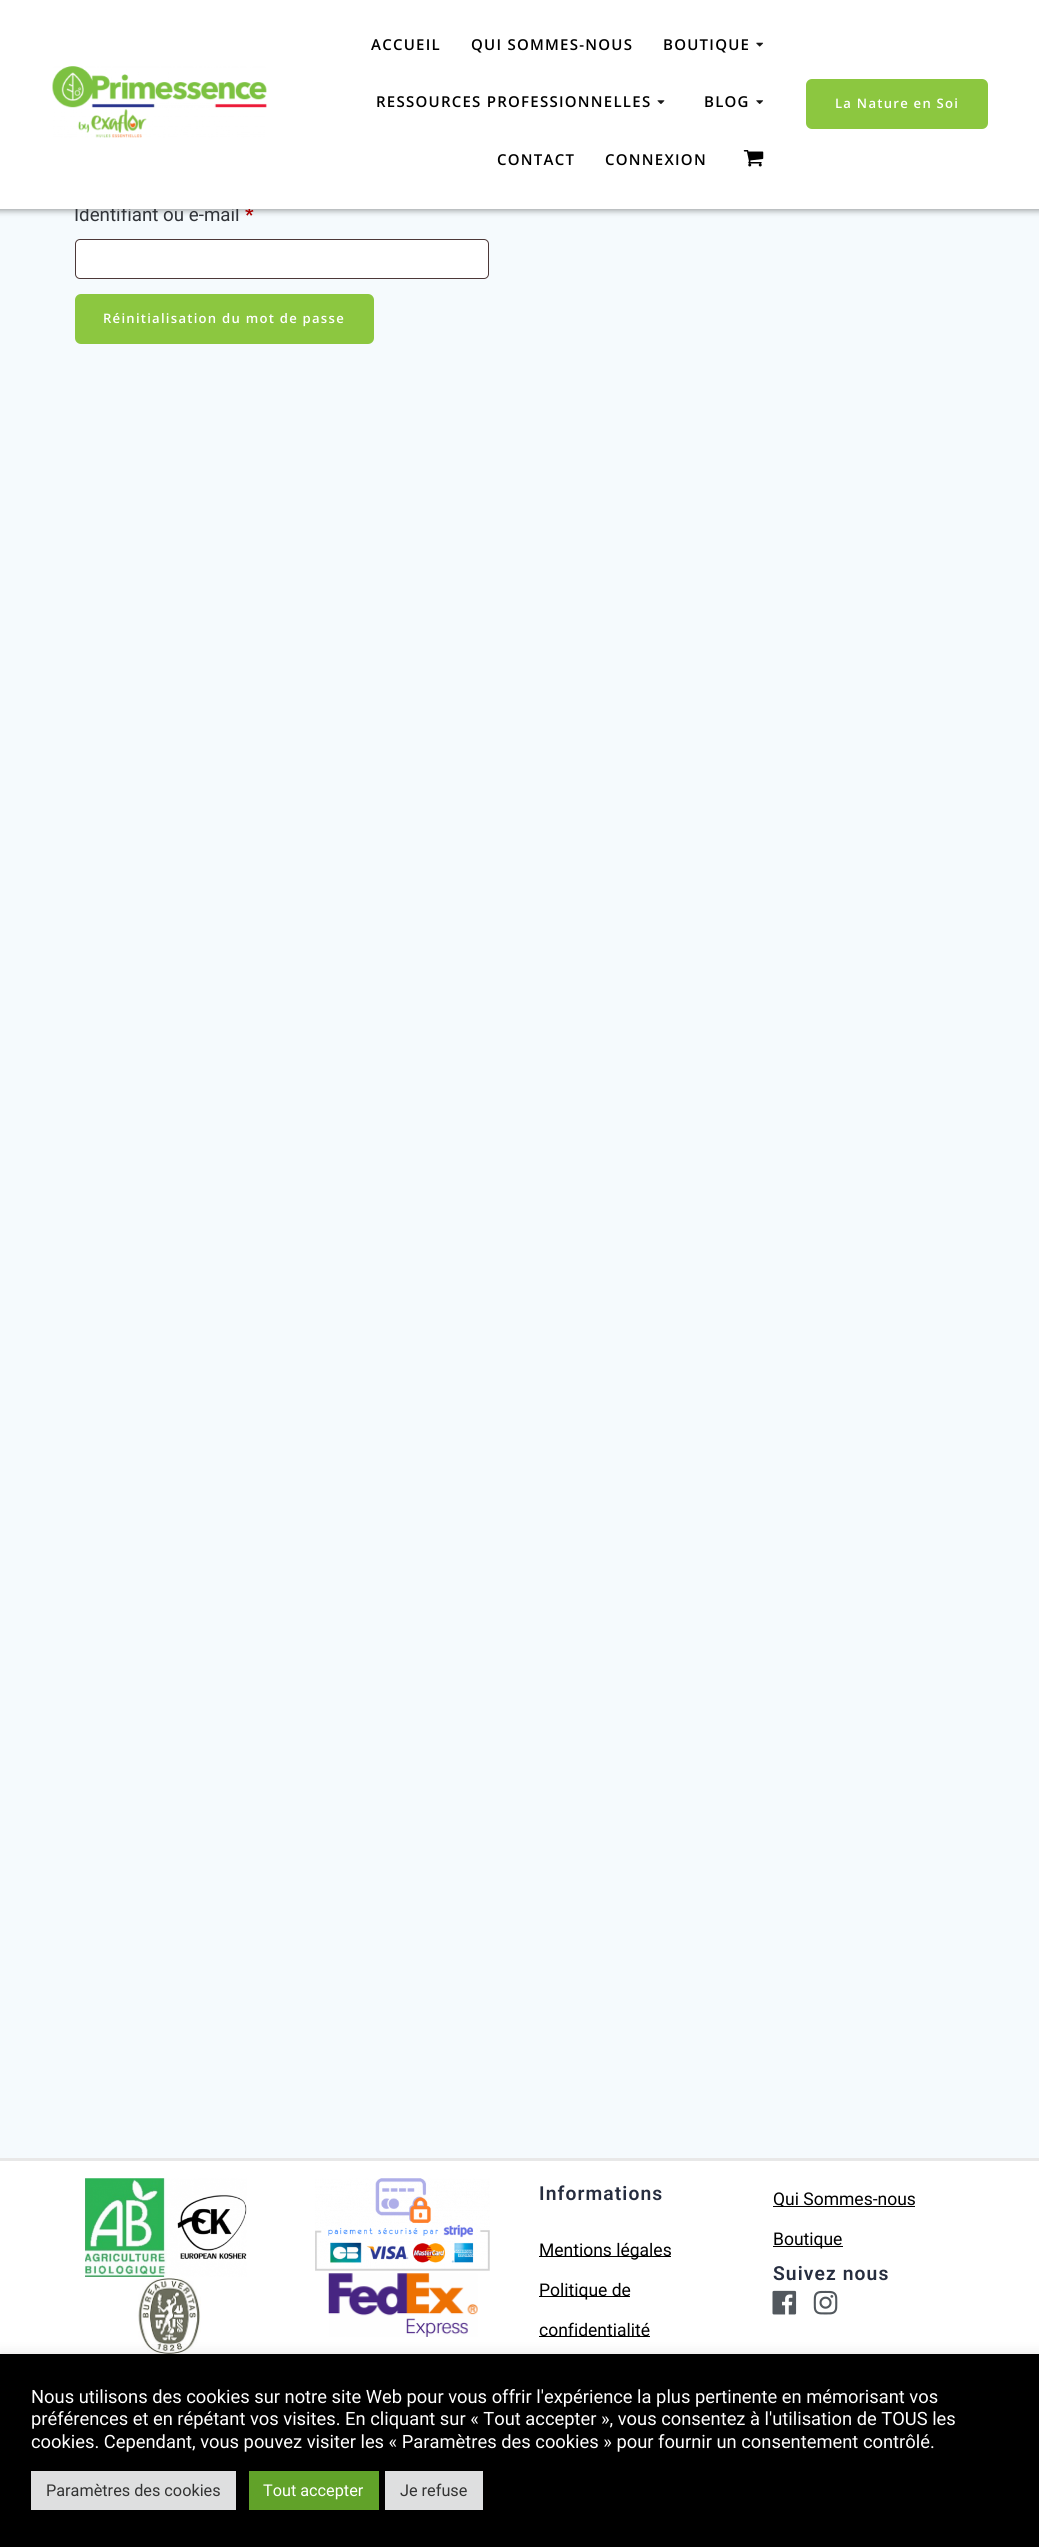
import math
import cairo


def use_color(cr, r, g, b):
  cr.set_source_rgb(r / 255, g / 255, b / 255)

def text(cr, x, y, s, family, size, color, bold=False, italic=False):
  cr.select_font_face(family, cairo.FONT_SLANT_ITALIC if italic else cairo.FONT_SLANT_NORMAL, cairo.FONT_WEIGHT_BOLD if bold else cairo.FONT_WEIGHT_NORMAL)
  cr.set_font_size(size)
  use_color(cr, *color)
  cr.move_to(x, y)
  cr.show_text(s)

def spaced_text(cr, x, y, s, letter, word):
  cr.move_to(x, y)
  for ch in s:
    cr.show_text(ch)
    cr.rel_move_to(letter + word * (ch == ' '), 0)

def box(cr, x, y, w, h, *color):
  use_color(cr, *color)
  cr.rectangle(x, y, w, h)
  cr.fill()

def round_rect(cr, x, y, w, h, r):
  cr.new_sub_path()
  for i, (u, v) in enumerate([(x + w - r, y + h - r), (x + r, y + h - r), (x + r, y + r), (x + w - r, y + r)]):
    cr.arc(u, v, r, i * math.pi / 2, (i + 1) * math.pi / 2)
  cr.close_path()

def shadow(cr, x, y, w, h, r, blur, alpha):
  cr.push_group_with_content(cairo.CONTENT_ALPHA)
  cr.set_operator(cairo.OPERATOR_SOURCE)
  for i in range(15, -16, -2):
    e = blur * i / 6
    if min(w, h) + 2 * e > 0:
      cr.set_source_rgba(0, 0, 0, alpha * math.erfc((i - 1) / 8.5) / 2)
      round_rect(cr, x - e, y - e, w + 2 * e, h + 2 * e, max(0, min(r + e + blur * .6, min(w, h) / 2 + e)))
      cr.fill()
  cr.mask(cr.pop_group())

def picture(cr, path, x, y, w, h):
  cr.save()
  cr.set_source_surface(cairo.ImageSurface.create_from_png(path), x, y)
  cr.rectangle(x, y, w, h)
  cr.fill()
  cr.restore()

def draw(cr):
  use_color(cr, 255, 255, 255)
  cr.paint()
  box(cr, 0, 209, 1039, 1949, 245, 250, 253)
  use_color(cr, 0, 0, 0)
  shadow(cr, -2, -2, 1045, 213, 0, 3, 0.33)
  use_color(cr, 255, 255, 255)
  round_rect(cr, 75, 239, 414, 40, 5)
  cr.fill()
  round_rect(cr, 75.5, 239.5, 413, 39, 4.5)
  cr.set_source_rgba(0.125, 0.027, 0.027, 0.8)
  cr.set_line_width(1)
  cr.stroke()
  use_color(cr, 140, 199, 64)
  round_rect(cr, 76.5, 295.5, 296, 47, 4.5)
  cr.fill_preserve()
  cr.set_line_width(3)
  cr.stroke()
  box(cr, 0, 2158, 1039, 3, 232, 232, 232)
  picture(cr, "img_06.png", 85, 2178, 162, 99)
  picture(cr, "img_07.png", 125, 2278, 88, 76)
  picture(cr, "img_08.png", 315, 2178, 175, 93)
  picture(cr, "img_09.png", 328, 2273, 150, 64)
  box(cr, 539, 2256, 132, 1, 0, 0, 0)
  box(cr, 539, 2296, 91, 1, 0, 0, 0)
  box(cr, 539, 2336, 111, 1, 0, 0, 0)
  box(cr, 773, 2206, 142, 1, 0, 0, 0)
  box(cr, 773, 2246, 70, 1, 0, 0, 0)
  picture(cr, "img_10.png", 772, 2290, 25, 25)
  picture(cr, "img_11.png", 813, 2290, 25, 25)
  use_color(cr, 172, 171, 171)
  shadow(cr, 0, 2353, 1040, 193, 0, 6, 0.3)
  box(cr, 0, 2354, 1039, 193, 0, 0, 0)
  box(cr, 31, 2471, 205, 39, 222, 223, 224)
  box(cr, 249, 2471, 130, 39, 97, 162, 41)
  box(cr, 385, 2471, 98, 39, 222, 223, 224)
  text(cr, 74, 221, "Identifiant ou e-mail", "Roboto", 18.75, (49, 52, 57))
  text(cr, 245, 221, "*", "Roboto", 18.75, (170, 0, 0), bold=True)
  box(cr, 0, 0, 1039, 209, 255, 255, 255)
  picture(cr, "img_05.png", 743, 150, 21, 17)
  cr.select_font_face("Open Sans SemiBold")
  cr.set_font_size(15)
  use_color(cr, 0, 0, 0)
  spaced_text(cr, 605, 165, "CONNEXION", 1.25, 0)
  spaced_text(cr, 497, 165, "CONTACT", 1.25, 0)
  picture(cr, "img_04.png", 756, 100, 8, 4)
  spaced_text(cr, 704, 107, "BLOG", 1.25, 0)
  picture(cr, "img_03.png", 657, 100, 8, 4)
  spaced_text(cr, 376, 107, "RESSOURCES PROFESSIONNELLES", 1.25, 0)
  picture(cr, "img_02.png", 756, 42, 8, 5)
  spaced_text(cr, 663, 50, "BOUTIQUE", 1.25, 0)
  spaced_text(cr, 471, 50, "QUI SOMMES-NOUS", 1.25, 0)
  spaced_text(cr, 371, 50, "ACCUEIL", 1.25, 0)
  use_color(cr, 140, 199, 64)
  round_rect(cr, 807.5, 80.5, 179, 47, 4.5)
  cr.fill_preserve()
  cr.stroke()
  cr.set_font_size(13.1)
  use_color(cr, 255, 255, 255)
  spaced_text(cr, 835, 108, "La Nature en Soi", 1.25, 0)
  picture(cr, "img_01.png", 52, 66, 215, 72)
  spaced_text(cr, 103, 323, "Réinitialisation du mot de passe", 1.25, 0)
  cr.select_font_face("Roboto SemiBold")
  cr.set_font_size(19.25)
  use_color(cr, 38, 45, 63)
  spaced_text(cr, 539, 2200, "Informations", 1.1, 0)
  text(cr, 539, 2256, "Mentions légales", "Roboto", 17.5, (0, 0, 0))
  text(cr, 539, 2296, "Politique de", "Roboto", 17.5, (0, 0, 0))
  text(cr, 539, 2336, "confidentialité", "Roboto", 17.5, (0, 0, 0))
  text(cr, 773, 2205, "Qui Sommes-nous", "Roboto", 17.5, (0, 0, 0))
  text(cr, 773, 2245, "Boutique", "Roboto", 17.5, (0, 0, 0))
  cr.select_font_face("Roboto SemiBold")
  cr.set_font_size(19.25)
  use_color(cr, 38, 45, 63)
  spaced_text(cr, 773, 2280, "Suivez nous", 1.1, 0)
  text(cr, 31, 2403, "Nous utilisons des cookies sur notre site Web pour vous offrir l'expérience la plus pertinente en mémorisant vos", "Roboto", 18.33, (255, 255, 255))
  text(cr, 31, 2425, "préférences et en répétant vos visites. En cliquant sur « Tout accepter », vous consentez à l'utilisation de TOUS les", "Roboto", 18.33, (255, 255, 255))
  text(cr, 31, 2448, "cookies. Cependant, vous pouvez visiter les « Paramètres des cookies » pour fournir un consentement contrôlé.", "Roboto", 18.33, (255, 255, 255))
  text(cr, 46, 2496, "Paramètres des cookies", "Roboto", 16.25, (51, 51, 51))
  text(cr, 263, 2496, "Tout accepter", "Roboto", 16.25, (255, 255, 255))
  text(cr, 400, 2496, "Je refuse", "Roboto", 16.25, (51, 51, 51))


surface = cairo.ImageSurface(cairo.FORMAT_RGB24, 1039, 2547)
cr = cairo.Context(surface)
options = cairo.FontOptions()
options.set_hint_metrics(cairo.HINT_METRICS_OFF)
options.set_hint_style(cairo.HINT_STYLE_NONE)
cr.set_font_options(options)
cr.set_miter_limit(4)
draw(cr)
surface.write_to_png("out.png")
